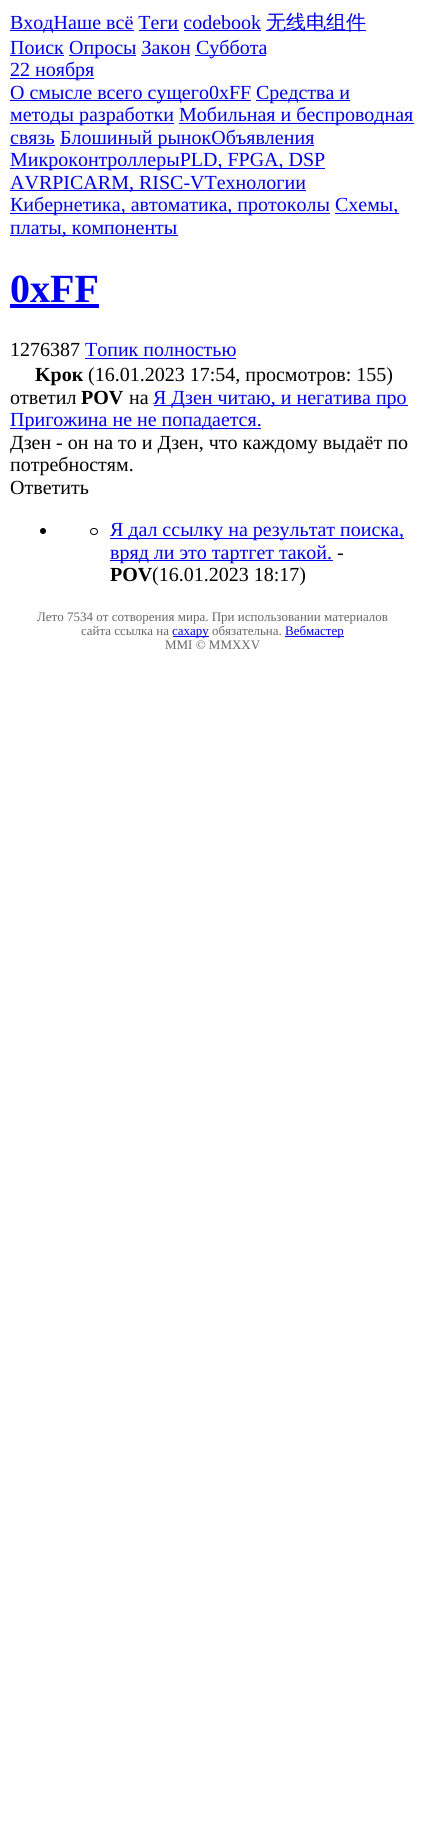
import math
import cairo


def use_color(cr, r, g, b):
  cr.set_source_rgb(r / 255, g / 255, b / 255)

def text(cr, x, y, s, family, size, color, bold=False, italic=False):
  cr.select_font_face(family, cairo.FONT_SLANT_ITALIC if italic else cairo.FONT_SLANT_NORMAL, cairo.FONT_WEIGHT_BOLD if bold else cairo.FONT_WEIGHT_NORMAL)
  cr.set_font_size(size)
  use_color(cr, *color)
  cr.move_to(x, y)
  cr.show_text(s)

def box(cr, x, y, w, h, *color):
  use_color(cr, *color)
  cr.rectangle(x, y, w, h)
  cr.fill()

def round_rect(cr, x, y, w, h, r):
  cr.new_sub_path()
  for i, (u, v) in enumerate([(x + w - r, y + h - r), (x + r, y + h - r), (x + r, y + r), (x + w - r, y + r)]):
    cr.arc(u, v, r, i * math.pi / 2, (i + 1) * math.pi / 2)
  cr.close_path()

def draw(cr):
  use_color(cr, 255, 255, 255)
  cr.paint()
  box(cr, 10, 30, 124, 1, 0, 0, 238)
  box(cr, 266, 30, 100, 1, 0, 0, 238)
  box(cr, 139, 30, 40, 1, 0, 0, 238)
  box(cr, 184, 30, 77, 1, 0, 0, 238)
  box(cr, 10, 55, 54, 1, 0, 0, 238)
  box(cr, 69, 55, 67, 1, 0, 0, 238)
  box(cr, 195, 55, 71, 1, 0, 0, 238)
  box(cr, 141, 55, 49, 1, 0, 0, 238)
  box(cr, 10, 78, 84, 1, 0, 0, 238)
  box(cr, 10, 100, 241, 1, 0, 0, 238)
  box(cr, 256, 100, 94, 1, 0, 0, 238)
  box(cr, 10, 123, 164, 1, 0, 0, 238)
  box(cr, 179, 123, 235, 1, 0, 0, 238)
  box(cr, 10, 145, 45, 1, 0, 0, 238)
  box(cr, 60, 145, 254, 1, 0, 0, 238)
  box(cr, 10, 168, 315, 1, 0, 0, 238)
  box(cr, 10, 190, 296, 1, 0, 0, 238)
  box(cr, 10, 213, 320, 1, 0, 0, 238)
  box(cr, 335, 213, 64, 1, 0, 0, 238)
  box(cr, 10, 235, 168, 1, 0, 0, 238)
  box(cr, 10, 304, 89, 4, 0, 0, 238)
  box(cr, 85, 358, 151, 1, 0, 0, 238)
  box(cr, 154, 405, 254, 1, 0, 0, 238)
  box(cr, 10, 428, 251, 1, 0, 0, 238)
  use_color(cr, 0, 0, 0)
  cr.arc(43, 531, 3, 0, 2 * math.pi)
  cr.fill()
  round_rect(cr, 90.5, 528.5, 7, 6, 3)
  cr.set_line_width(1)
  cr.stroke()
  box(cr, 110, 538, 294, 1, 0, 0, 238)
  box(cr, 110, 560, 223, 1, 0, 0, 238)
  box(cr, 173, 636, 36, 1, 0, 0, 238)
  box(cr, 285, 636, 59, 1, 0, 0, 238)
  text(cr, 10, 29, "ВходНаше всё Теги codebook", "Liberation Serif", 20, (0, 0, 238))
  text(cr, 266, 29, "无线电组件", "WenQuanYi Zen Hei Medium", 20, (0, 0, 238))
  text(cr, 10, 54, "Поиск", "Liberation Serif", 20, (0, 0, 238))
  text(cr, 69, 54, "Опросы Закон", "Liberation Serif", 20, (0, 0, 238))
  text(cr, 196, 54, "Суббота", "Liberation Serif", 20, (0, 0, 238))
  text(cr, 10, 76, "22 ноября", "Liberation Serif", 20, (0, 0, 238))
  text(cr, 10, 99, "О смысле всего сущего0xFF", "Liberation Serif", 20, (0, 0, 238))
  text(cr, 256, 99, "Средства и", "Liberation Serif", 20, (0, 0, 238))
  text(cr, 10, 121, "методы разработки", "Liberation Serif", 20, (0, 0, 238))
  text(cr, 179, 121, "Мобильная и беспроводная", "Liberation Serif", 20, (0, 0, 238))
  text(cr, 10, 144, "связь", "Liberation Serif", 20, (0, 0, 238))
  text(cr, 60, 144, "Блошиный рынокОбъявления", "Liberation Serif", 20, (0, 0, 238))
  text(cr, 10, 166, "МикроконтроллерыPLD, FPGA, DSP", "Liberation Serif", 20, (0, 0, 238))
  text(cr, 10, 189, "AVRPICARM, RISC-VТехнологии", "Liberation Serif", 20, (0, 0, 238))
  text(cr, 10, 211, "Кибернетика, автоматика, протоколы", "Liberation Serif", 20, (0, 0, 238))
  text(cr, 335, 211, "Схемы,", "Liberation Serif", 20, (0, 0, 238))
  text(cr, 10, 234, "платы, компоненты", "Liberation Serif", 20, (0, 0, 238))
  text(cr, 10, 302, "0xFF", "Liberation Serif", 40, (0, 0, 238), bold=True)
  text(cr, 10, 356, "1276387", "Liberation Serif", 20, (0, 0, 0))
  text(cr, 85, 356, "Топик полностью", "Liberation Serif", 20, (0, 0, 238))
  text(cr, 35, 381, "Kpoк", "Liberation Serif", 20, (0, 0, 0), bold=True)
  text(cr, 88, 381, "(16.01.2023 17:54, просмотров: 155)", "Liberation Serif", 20, (0, 0, 0))
  text(cr, 10, 404, "ответил", "Liberation Serif", 20, (0, 0, 0))
  text(cr, 81, 404, "POV", "Liberation Serif", 20, (0, 0, 0), bold=True)
  text(cr, 129, 404, "на", "Liberation Serif", 20, (0, 0, 0))
  text(cr, 153, 404, "Я Дзен читаю, и негатива про", "Liberation Serif", 20, (0, 0, 238))
  text(cr, 10, 426, "Пригожина не не попадается.", "Liberation Serif", 20, (0, 0, 238))
  text(cr, 10, 449, "Дзен - он на то и Дзен, что каждому выдаёт по", "Liberation Serif", 20, (0, 0, 0))
  text(cr, 10, 471, "потребностям.", "Liberation Serif", 20, (0, 0, 0))
  text(cr, 10, 494, "Ответить", "Liberation Serif", 20, (0, 0, 0))
  text(cr, 110, 536, "Я дал ссылку на результат поиска,", "Liberation Serif", 20, (0, 0, 238))
  text(cr, 110, 559, "вряд ли это тартгет такой.", "Liberation Serif", 20, (0, 0, 238))
  text(cr, 337, 559, "-", "Liberation Serif", 20, (0, 0, 0))
  text(cr, 110, 581, "POV", "Liberation Serif", 20, (0, 0, 0), bold=True)
  text(cr, 152, 581, "(16.01.2023 18:17)", "Liberation Serif", 20, (0, 0, 0))
  text(cr, 37, 621, "Лето 7534 от сотворения мира. При использовании материалов", "Liberation Serif", 13, (102, 102, 102))
  text(cr, 81, 635, "сайта ссылка на", "Liberation Serif", 13, (102, 102, 102))
  text(cr, 172, 635, "caxapу", "Liberation Serif", 13, (0, 0, 238))
  text(cr, 212, 635, "обязательна.", "Liberation Serif", 13, (102, 102, 102))
  text(cr, 285, 635, "Вебмастер", "Liberation Serif", 13, (0, 0, 238))
  text(cr, 165, 649, "MMI © MMXXV", "Liberation Serif", 13, (102, 102, 102))


surface = cairo.ImageSurface(cairo.FORMAT_RGB24, 424, 1836)
cr = cairo.Context(surface)
options = cairo.FontOptions()
options.set_hint_metrics(cairo.HINT_METRICS_OFF)
options.set_hint_style(cairo.HINT_STYLE_NONE)
cr.set_font_options(options)
cr.set_miter_limit(4)
draw(cr)
surface.write_to_png("out.png")
